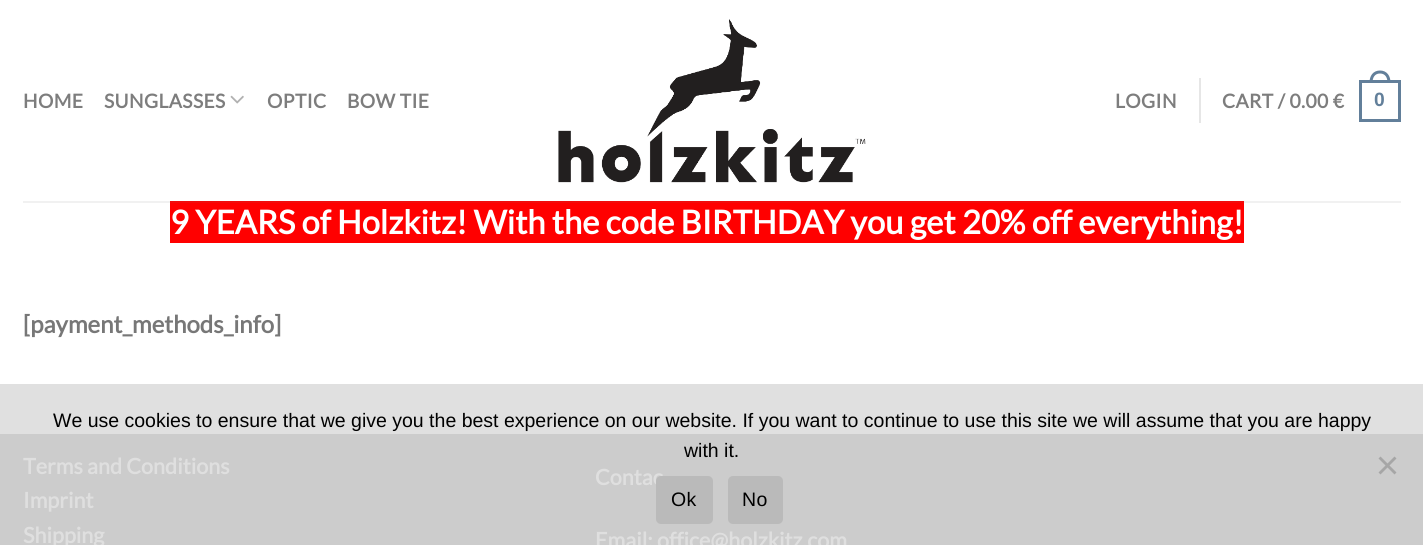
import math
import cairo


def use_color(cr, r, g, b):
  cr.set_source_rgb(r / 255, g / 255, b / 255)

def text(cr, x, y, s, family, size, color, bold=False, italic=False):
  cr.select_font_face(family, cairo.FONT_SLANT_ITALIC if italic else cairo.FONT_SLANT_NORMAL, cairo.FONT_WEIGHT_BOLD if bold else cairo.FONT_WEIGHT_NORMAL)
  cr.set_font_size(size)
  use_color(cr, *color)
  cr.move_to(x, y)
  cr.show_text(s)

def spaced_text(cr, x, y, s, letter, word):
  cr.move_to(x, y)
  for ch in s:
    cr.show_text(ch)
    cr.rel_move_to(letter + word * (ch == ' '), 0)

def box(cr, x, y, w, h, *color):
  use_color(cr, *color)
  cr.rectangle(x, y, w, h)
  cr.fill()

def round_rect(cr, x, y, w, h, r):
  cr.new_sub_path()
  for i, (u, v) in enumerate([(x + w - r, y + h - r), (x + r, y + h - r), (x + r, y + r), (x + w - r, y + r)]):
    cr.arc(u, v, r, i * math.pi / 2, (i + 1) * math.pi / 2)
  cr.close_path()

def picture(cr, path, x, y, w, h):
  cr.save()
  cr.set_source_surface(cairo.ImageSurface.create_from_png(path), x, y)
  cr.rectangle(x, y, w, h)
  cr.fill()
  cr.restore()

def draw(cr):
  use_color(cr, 255, 255, 255)
  cr.paint()
  box(cr, 0, 384, 1423, 50, 224, 224, 224)
  box(cr, 23, 201, 1378, 2, 241, 241, 241)
  picture(cr, "img_01.png", 230, 95, 14, 9)
  picture(cr, "img_02.png", 558, 19, 308, 164)
  box(cr, 1199, 78, 2, 45, 230, 230, 230)
  cr.rectangle(1360.5, 81.5, 39, 39)
  use_color(cr, 98, 127, 154)
  cr.set_line_width(3)
  cr.stroke()
  cr.set_fill_rule(cairo.FILL_RULE_EVEN_ODD)
  cr.new_path()
  cr.move_to(1380, 70.5)
  cr.curve_to(1387, 70.5, 1390.5, 76, 1390.5, 82.5)
  cr.line_to(1369.5, 82.5)
  cr.curve_to(1369.5, 76, 1373, 70.5, 1380, 70.5)
  cr.close_path()
  cr.move_to(1380, 73.5)
  cr.curve_to(1385.5, 73.5, 1387.5, 78, 1387.5, 82.5)
  cr.line_to(1372.5, 82.5)
  cr.curve_to(1372.5, 78, 1374.5, 73.5, 1380, 73.5)
  cr.close_path()
  cr.fill()
  box(cr, 170, 203, 1074, 40, 255, 0, 0)
  box(cr, 170, 201, 1074, 2, 241, 12, 12)
  box(cr, 0, 434, 1423, 111, 204, 204, 204)
  use_color(cr, 166, 166, 166)
  cr.set_fill_rule(cairo.FILL_RULE_WINDING)
  cr.new_path()
  cr.move_to(1394.5, 456.5)
  cr.line_to(1396.5, 458.5)
  cr.line_to(1380.5, 474.5)
  cr.line_to(1378.5, 472.5)
  cr.close_path()
  cr.fill()
  cr.new_path()
  cr.move_to(1378.5, 458.5)
  cr.line_to(1380.5, 456.5)
  cr.line_to(1396.5, 472.5)
  cr.line_to(1394.5, 474.5)
  cr.close_path()
  cr.fill()
  use_color(cr, 186, 186, 186)
  round_rect(cr, 728, 476, 55, 48, 5)
  cr.fill()
  cr.select_font_face("Lato", cairo.FONT_SLANT_NORMAL, cairo.FONT_WEIGHT_BOLD)
  cr.set_font_size(19.25)
  use_color(cr, 125, 125, 125)
  spaced_text(cr, 23, 108, "HOME", 0.4, 0)
  spaced_text(cr, 104, 108, "SUNGLASSES", 0.4, 0)
  spaced_text(cr, 267, 108, "OPTIC", 0.4, 0)
  spaced_text(cr, 347, 108, "BOW TIE", 0.4, 0)
  spaced_text(cr, 1115, 108, "LOGIN", 0.4, 0)
  spaced_text(cr, 1222, 108, "CART / 0.00 €", 0.4, 0)
  cr.select_font_face("Liberation Sans", cairo.FONT_SLANT_NORMAL, cairo.FONT_WEIGHT_BOLD)
  use_color(cr, 98, 127, 154)
  spaced_text(cr, 1374, 106, "0", 0.4, 0)
  text(cr, 170, 234, "9 YEARS of Holzkitz! With the code BIRTHDAY you get 20% off everything!", "Lato", 32.65, (255, 255, 255), bold=True)
  text(cr, 23, 333, "[payment_methods_info]", "Lato", 24, (119, 119, 119), bold=True)
  text(cr, 23, 474, "Terms and Conditions", "Lato", 21.6, (223, 223, 223), bold=True)
  text(cr, 23, 508, "Imprint", "Lato", 21.6, (223, 223, 223), bold=True)
  text(cr, 23, 543, "Shipping", "Lato", 21.6, (223, 223, 223), bold=True)
  text(cr, 595, 485, "Contac", "Lato", 21.6, (223, 223, 223), bold=True)
  text(cr, 595, 548, "Email: office@holzkitz.com", "Lato", 21.6, (223, 223, 223), bold=True)
  text(cr, 53, 427, "We use cookies to ensure that we give you the best experience on our website. If you want to continue to use this site we will assume that you are happy", "Liberation Sans", 19.5, (0, 0, 0))
  text(cr, 684, 457, "with it.", "Liberation Sans", 19.5, (0, 0, 0))
  use_color(cr, 186, 186, 186)
  round_rect(cr, 656, 476, 57, 48, 5)
  cr.fill()
  use_color(cr, 0, 0, 0)
  spaced_text(cr, 671, 506, "Ok", 0.4, 0)
  spaced_text(cr, 742, 506, "No", 0.4, 0)


surface = cairo.ImageSurface(cairo.FORMAT_RGB24, 1423, 545)
cr = cairo.Context(surface)
options = cairo.FontOptions()
options.set_hint_metrics(cairo.HINT_METRICS_OFF)
options.set_hint_style(cairo.HINT_STYLE_NONE)
cr.set_font_options(options)
cr.set_miter_limit(4)
draw(cr)
surface.write_to_png("out.png")
